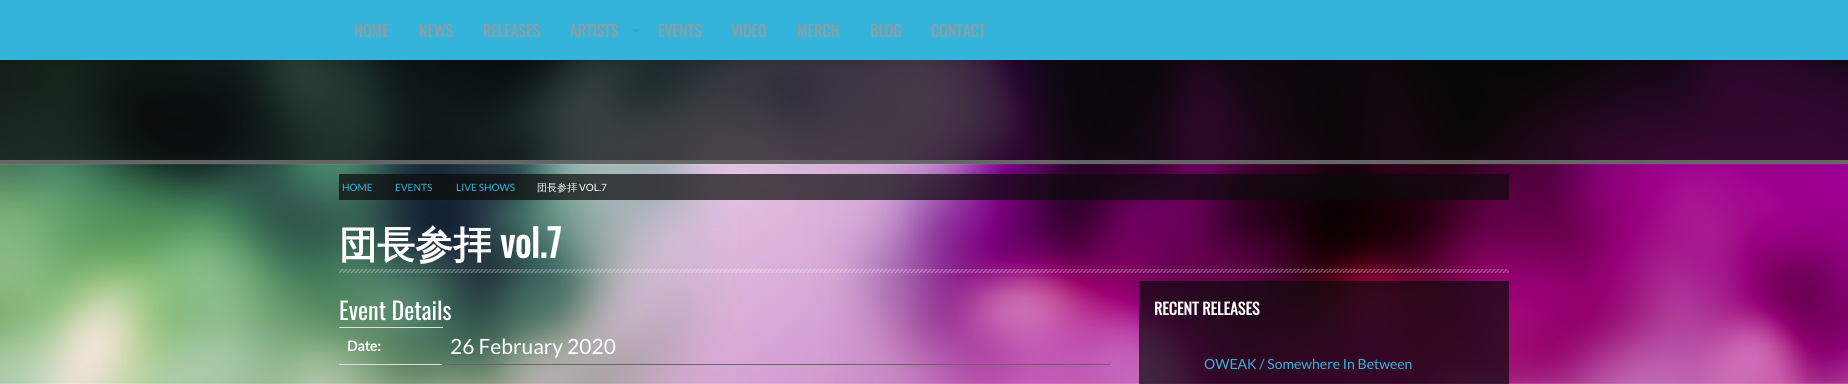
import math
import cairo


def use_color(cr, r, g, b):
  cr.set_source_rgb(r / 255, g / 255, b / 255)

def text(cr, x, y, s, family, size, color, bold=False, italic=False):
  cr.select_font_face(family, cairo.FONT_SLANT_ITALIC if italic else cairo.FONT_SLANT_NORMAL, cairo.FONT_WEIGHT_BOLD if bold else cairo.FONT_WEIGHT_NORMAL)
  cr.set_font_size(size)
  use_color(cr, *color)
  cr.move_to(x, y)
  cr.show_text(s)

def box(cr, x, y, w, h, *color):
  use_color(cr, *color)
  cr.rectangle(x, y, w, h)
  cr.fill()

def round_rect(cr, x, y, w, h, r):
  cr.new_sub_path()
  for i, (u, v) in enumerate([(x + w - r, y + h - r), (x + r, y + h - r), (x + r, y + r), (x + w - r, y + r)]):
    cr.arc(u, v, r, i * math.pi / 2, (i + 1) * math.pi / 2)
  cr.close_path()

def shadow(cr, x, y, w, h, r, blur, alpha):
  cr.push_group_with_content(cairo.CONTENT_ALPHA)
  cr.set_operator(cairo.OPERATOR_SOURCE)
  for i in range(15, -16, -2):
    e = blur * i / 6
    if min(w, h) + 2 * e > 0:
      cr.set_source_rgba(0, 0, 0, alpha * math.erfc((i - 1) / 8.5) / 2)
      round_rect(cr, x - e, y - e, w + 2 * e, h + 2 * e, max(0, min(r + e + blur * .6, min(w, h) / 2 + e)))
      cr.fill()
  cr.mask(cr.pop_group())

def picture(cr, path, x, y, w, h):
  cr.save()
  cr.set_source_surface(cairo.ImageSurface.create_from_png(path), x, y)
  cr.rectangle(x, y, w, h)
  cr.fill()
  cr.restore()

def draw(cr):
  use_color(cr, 255, 255, 255)
  cr.paint()
  picture(cr, "img_01.png", 0, 60, 1848, 324)
  cr.set_source_rgba(0.043, 0.043, 0.043, 0.7)
  cr.rectangle(0, 60, 1848, 100)
  cr.fill()
  use_color(cr, 0, 0, 0)
  shadow(cr, 0, 1, 1848, 60, 0, 5, 0.1)
  box(cr, 0, 0, 1848, 60, 53, 180, 219)
  use_color(cr, 43, 167, 186)
  cr.new_path()
  cr.move_to(632, 29)
  cr.line_to(640, 29)
  cr.line_to(636, 33)
  cr.close_path()
  cr.fill()
  cr.set_source_rgba(1, 1, 1, 0.05)
  cr.rectangle(0, 164, 1848, 1)
  cr.fill()
  box(cr, 0, 160, 1848, 4, 102, 102, 102)
  cr.set_source_rgba(0.043, 0.043, 0.043, 0.7)
  cr.rectangle(339, 174, 1170, 26)
  cr.fill()
  picture(cr, "img_02.png", 339, 269, 1170, 4)
  box(cr, 339, 327, 104, 1, 221, 221, 221)
  box(cr, 339, 364, 104, 1, 221, 221, 221)
  box(cr, 442, 364, 668, 1, 102, 102, 102)
  cr.set_source_rgba(0.043, 0.043, 0.043, 0.7)
  cr.rectangle(1139, 281, 370, 103)
  cr.fill()
  text(cr, 354, 37, "HOME", "Oswald", 16, (153, 153, 153))
  text(cr, 419, 37, "NEWS", "Oswald", 16, (153, 153, 153))
  text(cr, 483, 37, "RELEASES", "Oswald", 16, (153, 153, 153))
  text(cr, 570, 37, "ARTISTS", "Oswald", 16, (153, 153, 153))
  text(cr, 658, 37, "EVENTS", "Oswald", 16, (153, 153, 153))
  text(cr, 731, 37, "VIDEO", "Oswald", 16, (153, 153, 153))
  text(cr, 797, 37, "MERCH", "Oswald", 16, (153, 153, 153))
  text(cr, 870, 37, "BLOG", "Oswald", 16, (153, 153, 153))
  text(cr, 931, 37, "CONTACT", "Oswald", 16, (153, 153, 153))
  text(cr, 342, 191, "HOME", "Lato", 10, (53, 180, 219))
  text(cr, 395, 191, "EVENTS", "Lato", 10, (53, 180, 219))
  text(cr, 456, 191, "LIVE SHOWS", "Lato", 10, (53, 180, 219))
  text(cr, 537, 191, "団長参拝", "WenQuanYi Zen Hei Medium", 10, (255, 255, 255))
  text(cr, 579, 191, "VOL.7", "Lato", 10, (255, 255, 255))
  text(cr, 339, 258, "団長参拝", "WenQuanYi Zen Hei", 38, (255, 255, 255), bold=True)
  text(cr, 500, 258, "vol.7", "Oswald", 38, (255, 255, 255), bold=True)
  text(cr, 339, 320, "Event Details", "Oswald", 24, (255, 255, 255))
  text(cr, 347, 351, "Date:", "Lato", 14, (255, 255, 255), bold=True)
  text(cr, 450, 354, "26 February 2020", "Lato", 21, (255, 255, 255))
  text(cr, 1154, 315, "RECENT RELEASES", "Oswald", 16, (255, 255, 255), bold=True)
  text(cr, 1204, 369, "OWEAK / Somewhere In Between", "Lato", 14, (53, 180, 219))


surface = cairo.ImageSurface(cairo.FORMAT_RGB24, 1848, 384)
cr = cairo.Context(surface)
options = cairo.FontOptions()
options.set_hint_metrics(cairo.HINT_METRICS_OFF)
options.set_hint_style(cairo.HINT_STYLE_NONE)
cr.set_font_options(options)
cr.set_miter_limit(4)
draw(cr)
surface.write_to_png("out.png")
